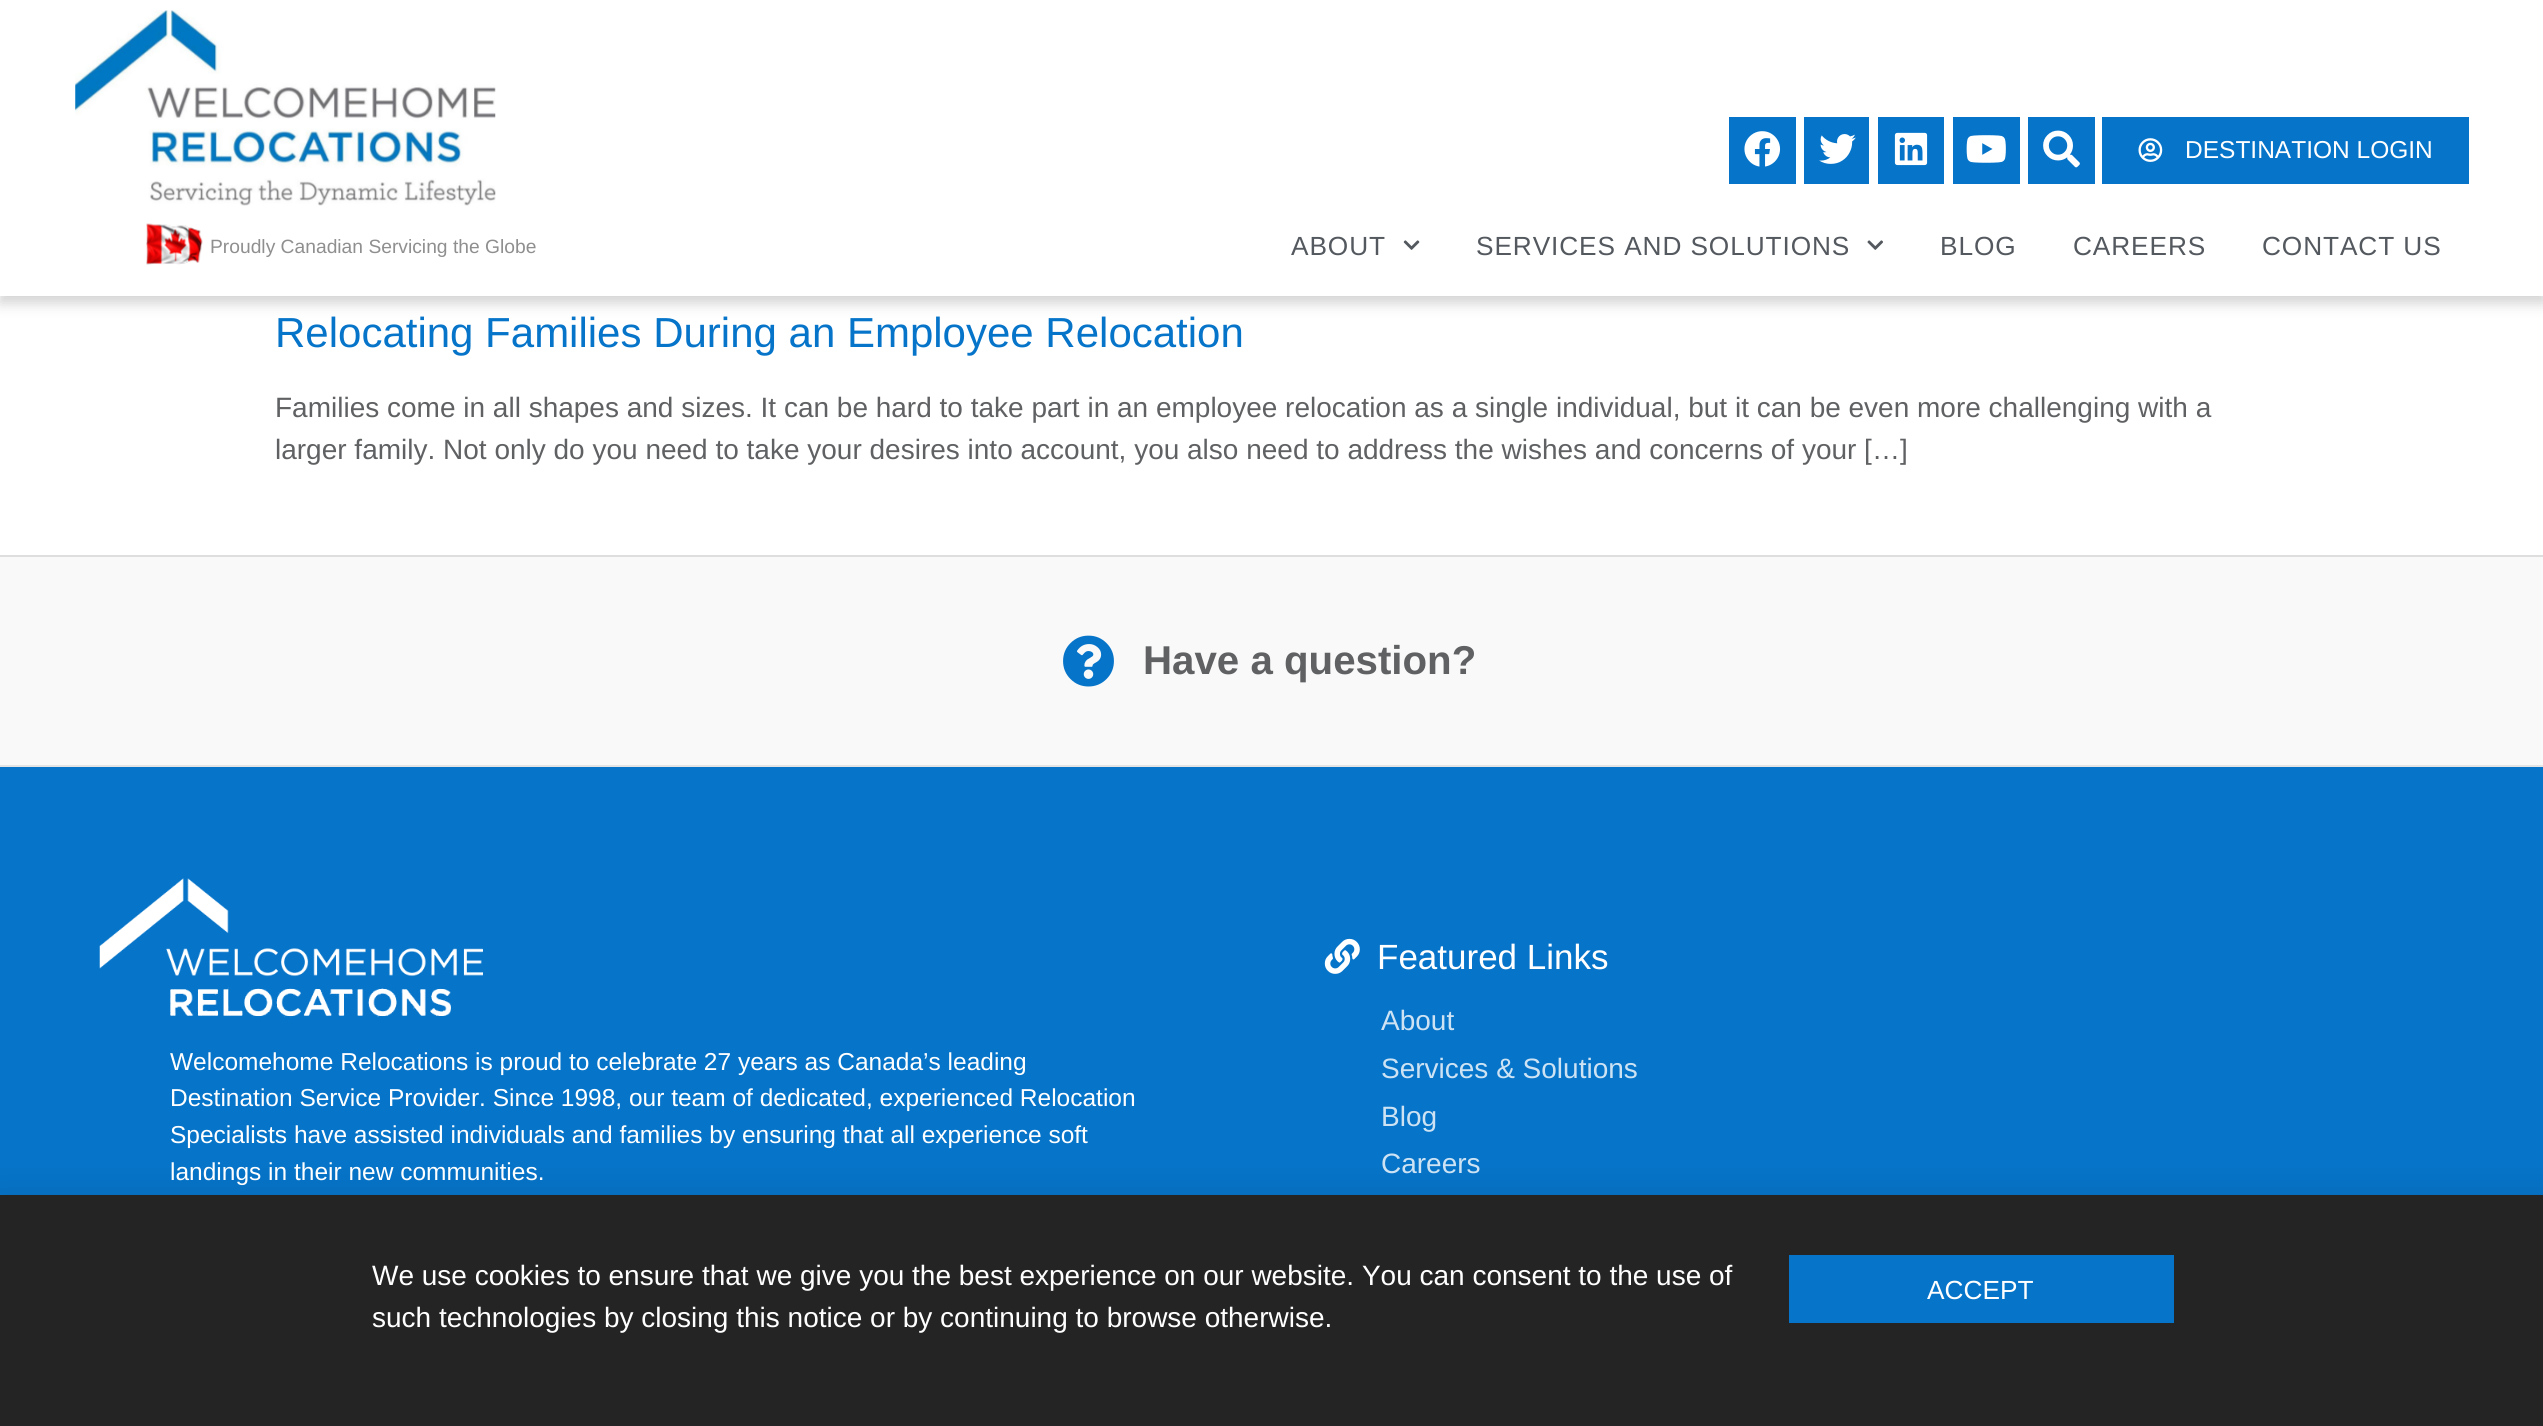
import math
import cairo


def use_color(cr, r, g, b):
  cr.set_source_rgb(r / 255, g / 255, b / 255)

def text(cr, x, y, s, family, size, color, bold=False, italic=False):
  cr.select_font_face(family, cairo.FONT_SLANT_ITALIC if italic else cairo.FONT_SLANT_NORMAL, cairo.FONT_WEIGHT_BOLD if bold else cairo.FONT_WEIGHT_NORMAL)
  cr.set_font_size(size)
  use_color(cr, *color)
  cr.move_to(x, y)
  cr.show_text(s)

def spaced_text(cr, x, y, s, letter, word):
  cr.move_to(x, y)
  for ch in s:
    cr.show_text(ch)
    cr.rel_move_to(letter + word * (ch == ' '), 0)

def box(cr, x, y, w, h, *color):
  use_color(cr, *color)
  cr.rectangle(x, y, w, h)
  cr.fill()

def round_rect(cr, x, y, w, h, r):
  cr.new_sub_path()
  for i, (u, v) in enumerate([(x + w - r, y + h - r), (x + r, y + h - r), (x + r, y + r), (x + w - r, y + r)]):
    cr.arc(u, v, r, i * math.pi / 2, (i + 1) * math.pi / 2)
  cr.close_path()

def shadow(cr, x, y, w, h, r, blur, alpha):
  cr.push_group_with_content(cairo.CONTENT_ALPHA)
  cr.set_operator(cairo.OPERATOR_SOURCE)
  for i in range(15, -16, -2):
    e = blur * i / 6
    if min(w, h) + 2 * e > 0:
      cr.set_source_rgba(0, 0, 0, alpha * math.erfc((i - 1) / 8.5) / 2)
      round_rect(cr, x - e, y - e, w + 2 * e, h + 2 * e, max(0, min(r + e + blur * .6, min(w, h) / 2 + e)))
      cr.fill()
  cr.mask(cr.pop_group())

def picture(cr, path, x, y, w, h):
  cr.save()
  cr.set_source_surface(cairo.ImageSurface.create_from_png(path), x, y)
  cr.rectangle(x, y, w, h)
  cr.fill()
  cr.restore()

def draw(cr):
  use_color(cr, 255, 255, 255)
  cr.paint()
  use_color(cr, 0, 0, 0)
  shadow(cr, 0, 7, 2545, 296, 0, 7, 0.18)
  box(cr, 0, 0, 2543, 296, 255, 255, 255)
  picture(cr, "img_01.png", 75, 10, 421, 196)
  picture(cr, "img_02.png", 146, 223, 57, 42)
  box(cr, 1729, 117, 67, 67, 6, 116, 201)
  picture(cr, "img_03.png", 1744, 131, 37, 36)
  box(cr, 1804, 117, 65, 67, 6, 116, 201)
  picture(cr, "img_04.png", 1819, 134, 37, 30)
  box(cr, 1878, 117, 66, 67, 6, 116, 201)
  picture(cr, "img_05.png", 1894, 132, 34, 34)
  box(cr, 1953, 117, 67, 67, 6, 116, 201)
  picture(cr, "img_06.png", 1966, 135, 40, 28)
  box(cr, 2028, 117, 67, 67, 6, 116, 201)
  picture(cr, "img_07.png", 2043, 130, 37, 38)
  box(cr, 2102, 117, 367, 67, 6, 116, 201)
  picture(cr, "img_08.png", 2138, 138, 25, 24)
  picture(cr, "img_09.png", 1403, 240, 17, 10)
  picture(cr, "img_10.png", 1867, 240, 16, 10)
  box(cr, 0, 557, 2543, 208, 249, 249, 249)
  box(cr, 0, 555, 2543, 2, 222, 222, 222)
  picture(cr, "img_11.png", 1063, 635, 51, 52)
  box(cr, 0, 767, 2543, 428, 6, 116, 201)
  box(cr, 0, 765, 2543, 2, 228, 228, 228)
  picture(cr, "img_12.png", 99, 878, 384, 140)
  picture(cr, "img_13.png", 1324, 938, 36, 36)
  use_color(cr, 0, 0, 0)
  shadow(cr, -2, 1204, 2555, 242, 0, 20, 0.2)
  box(cr, 0, 1195, 2543, 231, 36, 36, 36)
  box(cr, 1789, 1255, 385, 68, 6, 116, 201)
  text(cr, 210, 253, "Proudly Canadian Servicing the Globe", "Liberation Sans", 19.25, (143, 143, 143))
  text(cr, 2185, 158, "DESTINATION LOGIN", "Liberation Sans", 24.5, (255, 255, 255))
  cr.set_font_size(26.25)
  use_color(cr, 84, 89, 95)
  spaced_text(cr, 1291, 255, "ABOUT", 0.9, 0)
  spaced_text(cr, 1476, 255, "SERVICES AND SOLUTIONS", 0.9, 0)
  spaced_text(cr, 1940, 255, "BLOG", 0.9, 0)
  spaced_text(cr, 2073, 255, "CAREERS", 0.9, 0)
  spaced_text(cr, 2262, 255, "CONTACT US", 0.9, 0)
  text(cr, 275, 347, "Relocating Families During an Employee Relocation", "Liberation Sans", 42, (6, 116, 201))
  text(cr, 275, 417, "Families come in all shapes and sizes. It can be hard to take part in an employee relocation as a single individual, but it can be even more challenging with a", "Liberation Sans", 28, (95, 97, 99))
  text(cr, 275, 459, "larger family. Not only do you need to take your desires into account, you also need to address the wishes and concerns of your […]", "Liberation Sans", 28, (95, 97, 99))
  text(cr, 1143, 674, "Have a question?", "Liberation Sans", 40.25, (95, 97, 99), bold=True)
  text(cr, 170, 1070, "Welcomehome Relocations is proud to celebrate 27 years as Canada’s leading", "Liberation Sans", 24.5, (255, 255, 255))
  text(cr, 170, 1106, "Destination Service Provider. Since 1998, our team of dedicated, experienced Relocation", "Liberation Sans", 24.5, (255, 255, 255))
  text(cr, 170, 1143, "Specialists have assisted individuals and families by ensuring that all experience soft", "Liberation Sans", 24.5, (255, 255, 255))
  text(cr, 170, 1180, "landings in their new communities.", "Liberation Sans", 24.5, (255, 255, 255))
  text(cr, 1377, 969, "Featured Links", "Liberation Sans", 35, (255, 255, 255))
  text(cr, 1381, 1030, "About", "Liberation Sans", 28, (205, 227, 244))
  text(cr, 1381, 1078, "Services & Solutions", "Liberation Sans", 28, (205, 227, 244))
  text(cr, 1381, 1126, "Blog", "Liberation Sans", 28, (205, 227, 244))
  text(cr, 1381, 1173, "Careers", "Liberation Sans", 28, (205, 227, 244))
  text(cr, 372, 1285, "We use cookies to ensure that we give you the best experience on our website. You can consent to the use of", "Liberation Sans", 28, (255, 255, 255))
  text(cr, 372, 1327, "such technologies by closing this notice or by continuing to browse otherwise.", "Liberation Sans", 28, (255, 255, 255))
  text(cr, 1927, 1299, "ACCEPT", "Liberation Sans", 26.25, (255, 255, 255))


surface = cairo.ImageSurface(cairo.FORMAT_RGB24, 2543, 1426)
cr = cairo.Context(surface)
options = cairo.FontOptions()
options.set_hint_metrics(cairo.HINT_METRICS_OFF)
options.set_hint_style(cairo.HINT_STYLE_NONE)
cr.set_font_options(options)
cr.set_miter_limit(4)
draw(cr)
surface.write_to_png("out.png")
